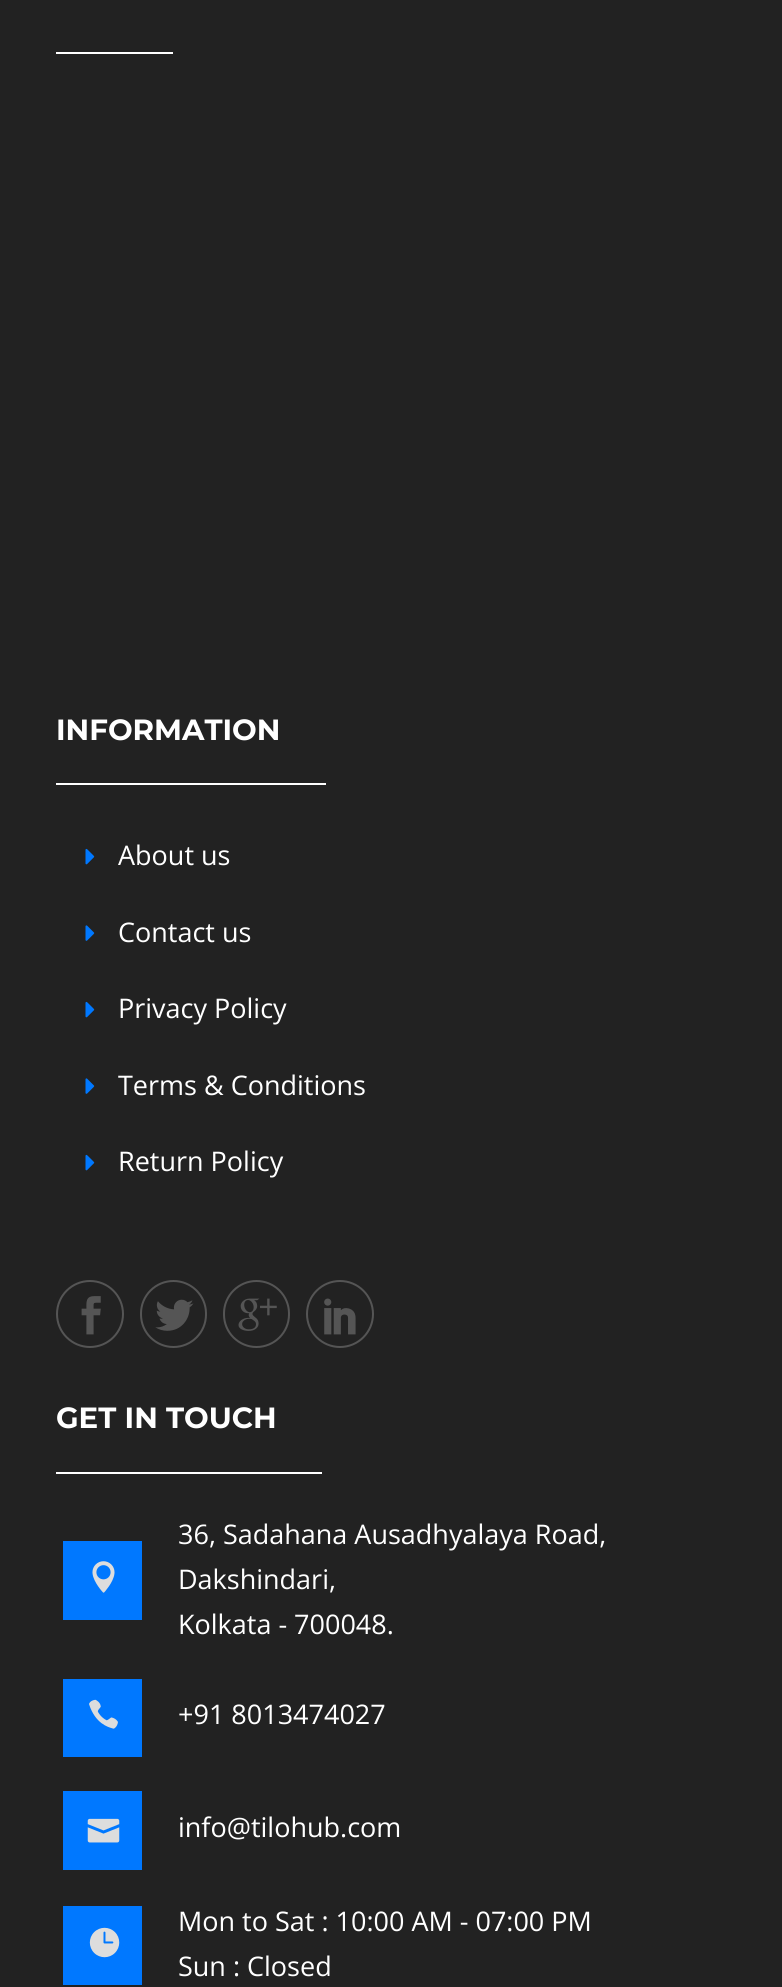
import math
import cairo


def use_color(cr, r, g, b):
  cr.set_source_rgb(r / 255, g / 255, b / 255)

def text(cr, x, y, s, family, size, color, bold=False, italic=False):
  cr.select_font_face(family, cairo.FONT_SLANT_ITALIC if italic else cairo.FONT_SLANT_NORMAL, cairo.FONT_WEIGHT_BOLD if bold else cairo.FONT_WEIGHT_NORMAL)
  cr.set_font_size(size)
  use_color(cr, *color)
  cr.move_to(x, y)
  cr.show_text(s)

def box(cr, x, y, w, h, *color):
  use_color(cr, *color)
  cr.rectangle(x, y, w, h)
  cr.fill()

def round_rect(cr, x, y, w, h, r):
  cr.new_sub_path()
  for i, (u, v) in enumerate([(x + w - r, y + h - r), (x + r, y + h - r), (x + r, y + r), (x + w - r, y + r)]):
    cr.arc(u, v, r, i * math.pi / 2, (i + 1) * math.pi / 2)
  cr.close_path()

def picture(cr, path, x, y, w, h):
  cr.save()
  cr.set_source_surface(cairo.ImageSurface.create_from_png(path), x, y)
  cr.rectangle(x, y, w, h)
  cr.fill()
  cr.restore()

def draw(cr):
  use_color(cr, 34, 34, 34)
  cr.paint()
  box(cr, 56, 52, 117, 2, 255, 255, 255)
  box(cr, 56, 783, 270, 2, 255, 255, 255)
  picture(cr, "img_01.png", 85, 848, 10, 17)
  picture(cr, "img_02.png", 85, 925, 10, 16)
  picture(cr, "img_01.png", 85, 1001, 10, 17)
  picture(cr, "img_02.png", 85, 1078, 10, 16)
  picture(cr, "img_01.png", 85, 1154, 10, 17)
  cr.arc(90, 1314, 33, 0, 2 * math.pi)
  use_color(cr, 85, 85, 85)
  cr.stroke()
  picture(cr, "img_03.png", 81, 1296, 20, 39)
  round_rect(cr, 141, 1281, 65, 66, 32.5)
  cr.stroke()
  picture(cr, "img_04.png", 155, 1299, 39, 32)
  round_rect(cr, 224, 1281, 65, 66, 32.5)
  cr.stroke()
  picture(cr, "img_05.png", 238, 1298, 39, 33)
  cr.arc(340, 1314, 33, 0, 2 * math.pi)
  cr.stroke()
  picture(cr, "img_06.png", 324, 1298, 32, 37)
  box(cr, 56, 1472, 266, 2, 255, 255, 255)
  box(cr, 63, 1541, 79, 79, 0, 120, 255)
  picture(cr, "img_07.png", 92, 1561, 23, 32)
  box(cr, 63, 1679, 79, 78, 0, 120, 255)
  picture(cr, "img_08.png", 89, 1699, 29, 30)
  box(cr, 63, 1791, 79, 79, 0, 120, 255)
  picture(cr, "img_09.png", 87, 1818, 33, 25)
  box(cr, 63, 1906, 79, 79, 0, 120, 255)
  picture(cr, "img_10.png", 89, 1927, 31, 31)
  text(cr, 56, 740, "INFORMATION", "Montserrat", 29.25, (255, 255, 255), bold=True)
  text(cr, 118, 865, "About us", "Open Sans", 27, (255, 255, 255))
  text(cr, 118, 942, "Contact us", "Open Sans", 27, (255, 255, 255))
  text(cr, 118, 1018, "Privacy Policy", "Open Sans", 27, (255, 255, 255))
  text(cr, 118, 1095, "Terms & Conditions", "Open Sans", 27, (255, 255, 255))
  text(cr, 118, 1171, "Return Policy", "Open Sans", 27, (255, 255, 255))
  text(cr, 56, 1428, "GET IN TOUCH", "Montserrat", 29.25, (255, 255, 255), bold=True)
  text(cr, 178, 1544, "36, Sadahana Ausadhyalaya Road,", "Open Sans", 27, (255, 255, 255))
  text(cr, 178, 1589, "Dakshindari,", "Open Sans", 27, (255, 255, 255))
  text(cr, 178, 1634, "Kolkata - 700048.", "Open Sans", 27, (255, 255, 255))
  text(cr, 178, 1724, "+91 8013474027", "Open Sans", 27, (255, 255, 255))
  text(cr, 178, 1837, "info@tilohub.com", "Open Sans", 27, (255, 255, 255))
  text(cr, 178, 1931, "Mon to Sat : 10:00 AM - 07:00 PM", "Open Sans", 27, (255, 255, 255))
  text(cr, 178, 1976, "Sun : Closed", "Open Sans", 27, (255, 255, 255))


surface = cairo.ImageSurface(cairo.FORMAT_RGB24, 782, 1987)
cr = cairo.Context(surface)
options = cairo.FontOptions()
options.set_hint_metrics(cairo.HINT_METRICS_OFF)
options.set_hint_style(cairo.HINT_STYLE_NONE)
cr.set_font_options(options)
cr.set_miter_limit(4)
draw(cr)
surface.write_to_png("out.png")
